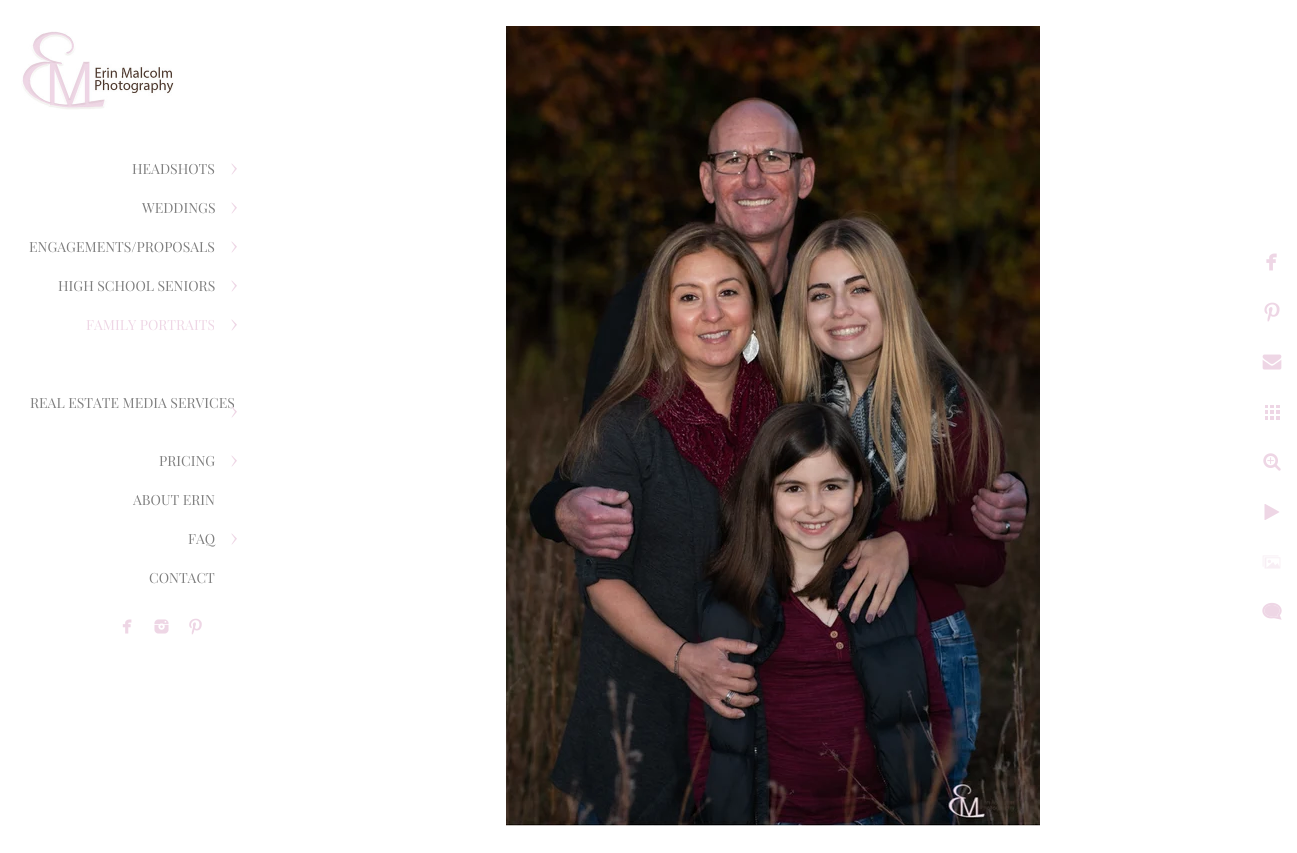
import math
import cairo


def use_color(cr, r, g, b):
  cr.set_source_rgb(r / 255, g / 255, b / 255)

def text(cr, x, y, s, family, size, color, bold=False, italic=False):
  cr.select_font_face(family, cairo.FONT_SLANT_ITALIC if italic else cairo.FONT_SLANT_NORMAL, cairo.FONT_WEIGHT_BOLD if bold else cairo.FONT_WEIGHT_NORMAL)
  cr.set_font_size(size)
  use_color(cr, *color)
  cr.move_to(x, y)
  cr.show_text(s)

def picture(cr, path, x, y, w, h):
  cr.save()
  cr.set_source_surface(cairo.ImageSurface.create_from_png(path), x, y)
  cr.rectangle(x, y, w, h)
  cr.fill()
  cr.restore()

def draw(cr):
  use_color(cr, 255, 255, 255)
  cr.paint()
  picture(cr, "img_01.png", 21, 31, 153, 79)
  picture(cr, "img_02.png", 231, 163, 6, 12)
  picture(cr, "img_02.png", 231, 202, 6, 12)
  picture(cr, "img_02.png", 231, 241, 6, 12)
  picture(cr, "img_02.png", 231, 280, 6, 12)
  picture(cr, "img_02.png", 231, 319, 6, 12)
  picture(cr, "img_02.png", 231, 455, 6, 12)
  picture(cr, "img_02.png", 231, 533, 6, 12)
  picture(cr, "img_04.png", 122, 619, 10, 15)
  picture(cr, "img_05.png", 154, 619, 15, 15)
  picture(cr, "img_06.png", 189, 618, 13, 17)
  picture(cr, "img_07.png", 506, 26, 534, 800)
  picture(cr, "img_08.png", 1266, 253, 11, 18)
  picture(cr, "img_09.png", 1264, 302, 16, 20)
  picture(cr, "img_10.png", 1262, 354, 20, 16)
  picture(cr, "img_11.png", 1265, 405, 15, 15)
  picture(cr, "img_12.png", 1263, 453, 18, 18)
  picture(cr, "img_13.png", 1264, 504, 16, 16)
  picture(cr, "img_14.png", 1262, 555, 19, 14)
  picture(cr, "img_15.png", 1262, 602, 20, 18)
  text(cr, 132, 174, "HEADSHOTS", "Playfair Display", 14, (128, 128, 128))
  text(cr, 142, 213, "WEDDINGS", "Playfair Display", 14, (128, 128, 128))
  text(cr, 29, 252, "ENGAGEMENTS/PROPOSALS", "Playfair Display", 14, (128, 128, 128))
  text(cr, 58, 291, "HIGH SCHOOL SENIORS", "Playfair Display", 14, (128, 128, 128))
  text(cr, 86, 330, "FAMILY PORTRAITS", "Playfair Display", 14, (238, 214, 229))
  text(cr, 30, 408, "REAL ESTATE MEDIA SERVICES", "Playfair Display", 14, (128, 128, 128))
  picture(cr, "img_03.png", 231, 406, 6, 12)
  text(cr, 159, 466, "PRICING", "Playfair Display", 14, (128, 128, 128))
  text(cr, 133, 505, "ABOUT ERIN", "Playfair Display", 14, (128, 128, 128))
  text(cr, 188, 544, "FAQ", "Playfair Display", 14, (128, 128, 128))
  text(cr, 149, 583, "CONTACT", "Playfair Display", 14, (128, 128, 128))


surface = cairo.ImageSurface(cairo.FORMAT_RGB24, 1297, 853)
cr = cairo.Context(surface)
options = cairo.FontOptions()
options.set_hint_metrics(cairo.HINT_METRICS_OFF)
options.set_hint_style(cairo.HINT_STYLE_NONE)
cr.set_font_options(options)
cr.set_miter_limit(4)
draw(cr)
surface.write_to_png("out.png")
